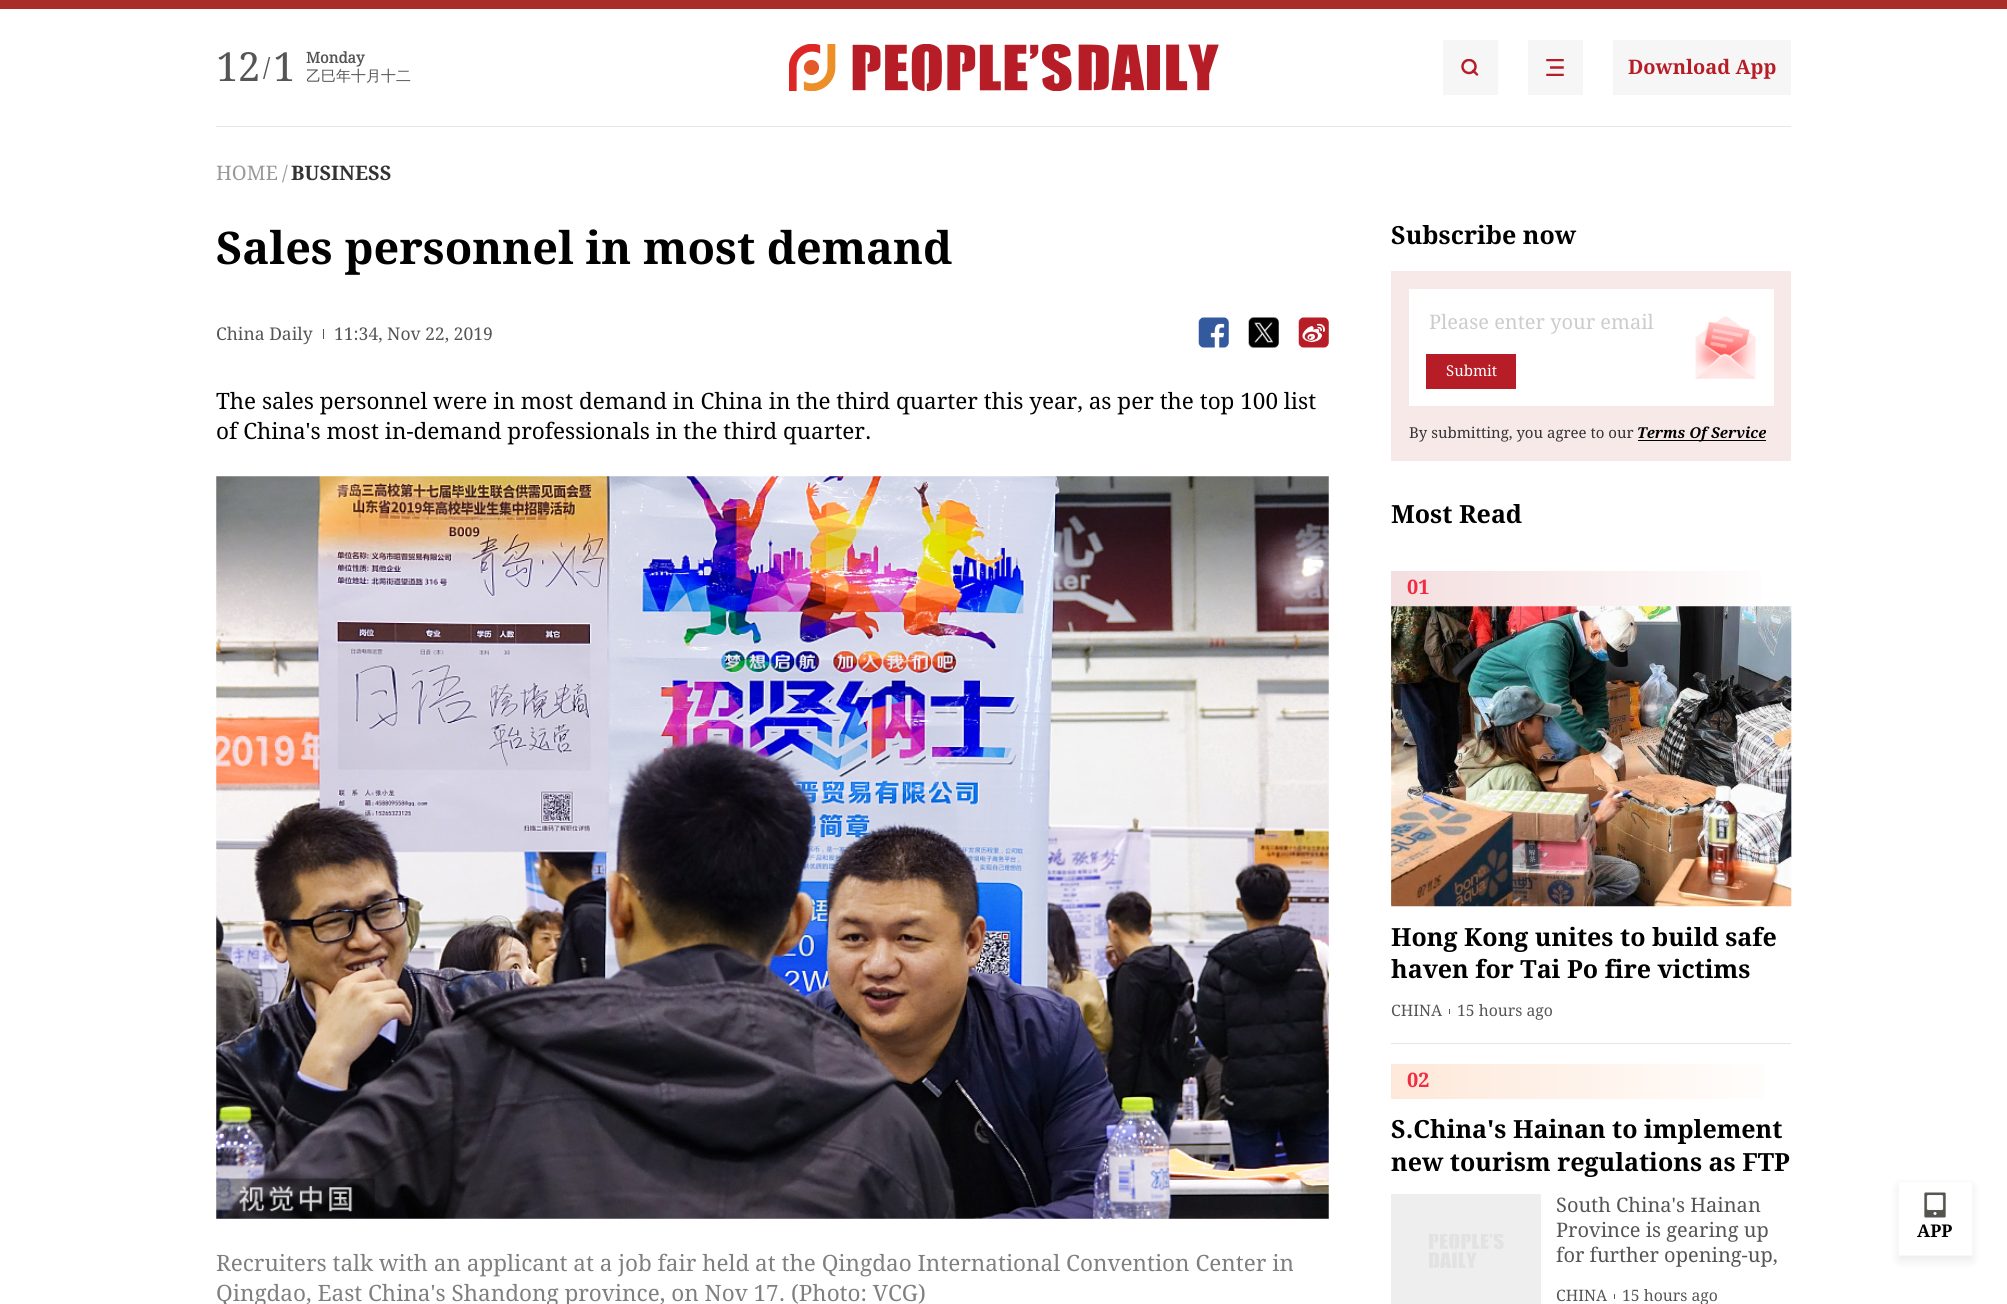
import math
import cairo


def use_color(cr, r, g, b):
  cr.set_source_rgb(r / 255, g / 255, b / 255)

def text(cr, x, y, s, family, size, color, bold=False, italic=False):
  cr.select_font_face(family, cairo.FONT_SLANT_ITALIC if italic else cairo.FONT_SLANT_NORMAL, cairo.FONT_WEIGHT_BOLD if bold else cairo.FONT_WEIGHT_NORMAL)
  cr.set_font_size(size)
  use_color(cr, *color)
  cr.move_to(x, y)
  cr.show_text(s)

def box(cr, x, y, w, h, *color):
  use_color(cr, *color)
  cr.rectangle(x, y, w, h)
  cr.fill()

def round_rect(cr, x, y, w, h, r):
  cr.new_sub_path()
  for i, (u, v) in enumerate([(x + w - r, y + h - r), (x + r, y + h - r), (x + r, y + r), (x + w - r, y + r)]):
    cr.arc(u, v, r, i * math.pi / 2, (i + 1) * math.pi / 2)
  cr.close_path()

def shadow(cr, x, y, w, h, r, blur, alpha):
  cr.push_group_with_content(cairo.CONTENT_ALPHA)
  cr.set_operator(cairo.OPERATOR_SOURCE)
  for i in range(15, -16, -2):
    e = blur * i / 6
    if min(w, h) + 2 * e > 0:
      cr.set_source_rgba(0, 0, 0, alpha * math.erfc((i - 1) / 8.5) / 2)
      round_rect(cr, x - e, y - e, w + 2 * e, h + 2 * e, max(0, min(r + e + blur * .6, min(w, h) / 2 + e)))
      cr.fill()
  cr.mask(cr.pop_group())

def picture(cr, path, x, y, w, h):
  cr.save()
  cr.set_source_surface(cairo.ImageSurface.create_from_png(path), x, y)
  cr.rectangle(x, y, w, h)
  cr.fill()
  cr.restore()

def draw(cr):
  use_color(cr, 255, 255, 255)
  cr.paint()
  box(cr, 0, 0, 2007, 9, 169, 46, 43)
  box(cr, 216, 126, 1575, 1, 230, 230, 230)
  picture(cr, "img_01.png", 789, 44, 430, 47)
  box(cr, 1443, 40, 55, 55, 245, 246, 245)
  cr.save()
  cr.rectangle(1461, 59, 18, 17)
  cr.clip()
  cr.arc(1469, 66.5, 6.5, 0, 2 * math.pi)
  use_color(cr, 183, 29, 38)
  cr.set_line_width(2.5)
  cr.stroke()
  cr.restore()
  use_color(cr, 183, 29, 38)
  cr.new_path()
  cr.move_to(1471.5, 71)
  cr.line_to(1473.5, 69)
  cr.line_to(1478.5, 74.5)
  cr.line_to(1477, 76)
  cr.close_path()
  cr.fill()
  box(cr, 1528, 40, 55, 55, 245, 246, 245)
  picture(cr, "img_02.png", 1546, 59, 18, 17)
  box(cr, 1613, 40, 178, 55, 245, 246, 245)
  box(cr, 323, 329, 1, 10, 85, 85, 85)
  picture(cr, "img_03.png", 1198, 317, 31, 31)
  picture(cr, "img_04.png", 1248, 317, 31, 31)
  picture(cr, "img_05.png", 1298, 317, 31, 31)
  picture(cr, "img_06.png", 216, 476, 1113, 743)
  box(cr, 1391, 271, 400, 190, 248, 233, 233)
  box(cr, 1409, 289, 365, 117, 255, 255, 255)
  box(cr, 1426, 354, 90, 35, 183, 29, 38)
  picture(cr, "img_07.png", 1695, 316, 61, 63)
  box(cr, 1638, 440, 128, 1, 0, 0, 0)
  box(cr, 1391, 1043, 400, 1, 230, 230, 230)
  gradient = cairo.LinearGradient(1791, 589, 1391, 589)
  gradient.add_color_stop_rgba(0, 1, 1, 1, 1)
  gradient.add_color_stop_rgba(1, 0.957, 0.871, 0.875, 1)
  cr.set_source(gradient)
  cr.rectangle(1391, 571, 370, 35)
  cr.fill()
  picture(cr, "img_08.png", 1391, 606, 401, 301)
  picture(cr, "img_09.png", 1391, 607, 401, 298)
  box(cr, 1449, 1009, 1, 5, 90, 90, 90)
  gradient = cairo.LinearGradient(1791, 1081, 1391, 1081)
  gradient.add_color_stop_rgba(0, 1, 1, 1, 1)
  gradient.add_color_stop_rgba(1, 0.996, 0.91, 0.851, 1)
  cr.set_source(gradient)
  cr.rectangle(1391, 1064, 374, 35)
  cr.fill()
  box(cr, 1391, 1194, 150, 110, 238, 238, 238)
  picture(cr, "img_10.png", 1429, 1234, 75, 34)
  box(cr, 1614, 1294, 1, 5, 90, 90, 90)
  use_color(cr, 0, 0, 0)
  shadow(cr, 1898, 1186, 75, 75, 1, 5, 0.08)
  use_color(cr, 255, 255, 255)
  round_rect(cr, 1898.5, 1181.5, 74, 74, 0.5)
  cr.fill_preserve()
  use_color(cr, 248, 248, 248)
  cr.set_line_width(1)
  cr.stroke()
  picture(cr, "img_11.png", 1924, 1192, 22, 26)
  text(cr, 216, 81, "12", "Droid Serif", 40, (85, 85, 85))
  text(cr, 263, 76, "/", "Droid Serif", 25, (85, 85, 85))
  text(cr, 273, 81, "1", "Droid Serif", 40, (85, 85, 85))
  text(cr, 306, 63, "Monday", "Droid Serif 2", 15, (85, 85, 85), bold=True)
  text(cr, 306, 81, "乙巳年十月十二", "WenQuanYi Zen Hei Medium", 15, (85, 85, 85))
  text(cr, 1628, 74, "Download App", "Droid Serif", 20, (183, 29, 38), bold=True)
  text(cr, 216, 180, "HOME", "Droid Serif", 20, (153, 153, 153))
  text(cr, 282, 180, "/", "Droid Serif", 20, (153, 153, 153))
  text(cr, 291, 180, "BUSINESS", "Droid Serif", 20, (51, 51, 51), bold=True)
  text(cr, 216, 264, "Sales personnel in most demand", "Droid Serif", 45, (0, 0, 0), bold=True)
  text(cr, 216, 340, "China Daily", "Droid Serif", 17.5, (85, 85, 85))
  text(cr, 334, 340, "11:34, Nov 22, 2019", "Droid Serif", 17.5, (85, 85, 85))
  text(cr, 216, 409, "The sales personnel were in most demand in China in the third quarter this year, as per the top 100 list", "Droid Serif", 22.5, (0, 0, 0))
  text(cr, 216, 439, "of China's most in-demand professionals in the third quarter.", "Droid Serif", 22.5, (0, 0, 0))
  text(cr, 216, 1271, "Recruiters talk with an applicant at a job fair held at the Qingdao International Convention Center in", "Droid Serif", 22.5, (127, 127, 127))
  text(cr, 216, 1301, "Qingdao, East China's Shandong province, on Nov 17. (Photo: VCG)", "Droid Serif", 22.5, (127, 127, 127))
  text(cr, 1391, 244, "Subscribe now", "Droid Serif", 25, (0, 0, 0), bold=True)
  text(cr, 1429, 329, "Please enter your email", "Droid Serif", 20, (204, 204, 204))
  text(cr, 1446, 376, "Submit", "Droid Serif", 15, (255, 255, 255))
  text(cr, 1409, 438, "By submitting, you agree to our", "Droid Serif", 15, (51, 51, 51))
  text(cr, 1637, 438, "Terms Of Service", "Droid Serif", 15, (0, 0, 0), bold=True, italic=True)
  text(cr, 1391, 523, "Most Read", "Droid Serif", 25, (0, 0, 0), bold=True)
  text(cr, 1407, 594, "01", "Droid Serif", 20, (242, 43, 65), bold=True)
  text(cr, 1391, 946, "Hong Kong unites to build safe", "Droid Serif", 25, (0, 0, 0), bold=True)
  text(cr, 1391, 978, "haven for Tai Po fire victims", "Droid Serif", 25, (0, 0, 0), bold=True)
  text(cr, 1391, 1016, "CHINA", "Droid Serif", 15.75, (85, 85, 85))
  text(cr, 1457, 1016, "15 hours ago", "Droid Serif", 15.75, (85, 85, 85))
  text(cr, 1407, 1087, "02", "Droid Serif", 20, (242, 43, 65), bold=True)
  text(cr, 1391, 1138, "S.China's Hainan to implement", "Droid Serif", 25, (0, 0, 0), bold=True)
  text(cr, 1391, 1171, "new tourism regulations as FTP", "Droid Serif", 25, (0, 0, 0), bold=True)
  text(cr, 1556, 1212, "South China's Hainan", "Droid Serif", 20, (85, 85, 85))
  text(cr, 1556, 1237, "Province is gearing up", "Droid Serif", 20, (85, 85, 85))
  text(cr, 1556, 1262, "for further opening-up,", "Droid Serif", 20, (85, 85, 85))
  text(cr, 1556, 1301, "CHINA", "Droid Serif", 15.75, (85, 85, 85))
  text(cr, 1622, 1301, "15 hours ago", "Droid Serif", 15.75, (85, 85, 85))
  text(cr, 1917, 1237, "APP", "Droid Serif", 17.5, (0, 0, 0), bold=True)


surface = cairo.ImageSurface(cairo.FORMAT_RGB24, 2007, 1304)
cr = cairo.Context(surface)
options = cairo.FontOptions()
options.set_hint_metrics(cairo.HINT_METRICS_OFF)
options.set_hint_style(cairo.HINT_STYLE_NONE)
cr.set_font_options(options)
cr.set_miter_limit(4)
draw(cr)
surface.write_to_png("out.png")
